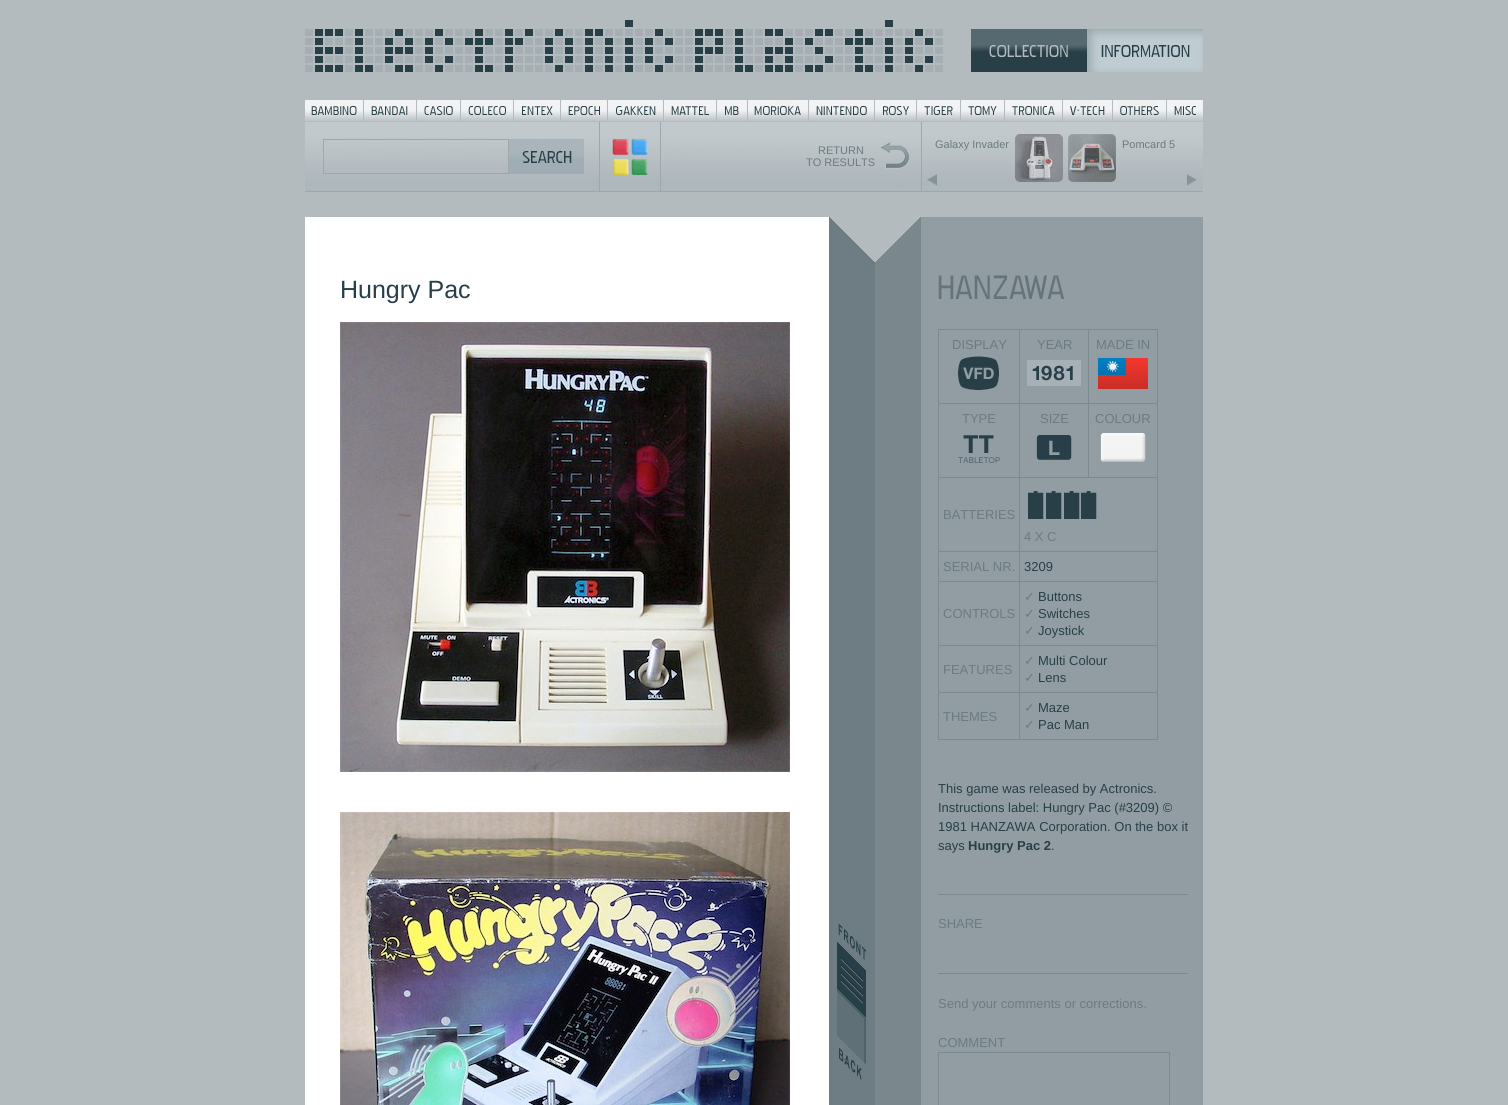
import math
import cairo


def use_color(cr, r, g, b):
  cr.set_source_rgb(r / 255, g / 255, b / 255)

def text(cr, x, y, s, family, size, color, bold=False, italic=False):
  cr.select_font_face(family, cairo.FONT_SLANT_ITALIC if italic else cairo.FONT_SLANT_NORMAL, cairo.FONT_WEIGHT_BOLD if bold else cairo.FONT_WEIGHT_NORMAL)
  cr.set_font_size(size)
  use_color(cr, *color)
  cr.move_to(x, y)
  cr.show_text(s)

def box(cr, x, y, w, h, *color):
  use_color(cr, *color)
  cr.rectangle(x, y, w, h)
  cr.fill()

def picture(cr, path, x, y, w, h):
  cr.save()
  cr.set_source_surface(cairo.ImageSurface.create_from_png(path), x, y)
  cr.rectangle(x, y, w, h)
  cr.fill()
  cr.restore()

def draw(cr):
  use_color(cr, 179, 187, 191)
  cr.paint()
  picture(cr, "img_01.png", 305, 217, 898, 888)
  picture(cr, "img_02.png", 305, 20, 638, 52)
  picture(cr, "img_03.png", 971, 29, 116, 43)
  picture(cr, "img_04.png", 1087, 29, 116, 43)
  picture(cr, "img_05.png", 305, 100, 898, 21)
  picture(cr, "img_06.png", 305, 122, 898, 69)
  box(cr, 305, 191, 898, 1, 157, 168, 173)
  box(cr, 599, 122, 1, 69, 157, 168, 173)
  cr.rectangle(323.5, 139.5, 185, 34)
  use_color(cr, 158, 168, 173)
  cr.set_line_width(1)
  cr.stroke()
  picture(cr, "img_07.png", 509, 139, 75, 35)
  box(cr, 660, 122, 1, 69, 157, 168, 173)
  picture(cr, "img_08.png", 612, 139, 36, 36)
  picture(cr, "img_09.png", 881, 141, 28, 28)
  picture(cr, "img_10.png", 927, 174, 270, 12)
  box(cr, 921, 122, 1, 69, 157, 168, 173)
  picture(cr, "img_11.png", 1015, 134, 48, 48)
  picture(cr, "img_12.png", 1068, 134, 48, 48)
  picture(cr, "img_13.png", 340, 322, 450, 450)
  picture(cr, "img_14.png", 340, 812, 450, 293)
  picture(cr, "img_15.png", 837, 923, 29, 158)
  picture(cr, "img_16.png", 938, 275, 127, 24)
  box(cr, 1088, 329, 70, 1, 124, 138, 144)
  box(cr, 1088, 403, 70, 1, 124, 138, 144)
  box(cr, 1019, 477, 139, 1, 124, 138, 144)
  box(cr, 1088, 403, 1, 75, 124, 138, 144)
  box(cr, 1019, 403, 70, 1, 124, 138, 144)
  box(cr, 1088, 329, 1, 75, 124, 138, 144)
  box(cr, 1019, 329, 70, 1, 124, 138, 144)
  box(cr, 1019, 551, 139, 1, 124, 138, 144)
  box(cr, 1019, 581, 139, 1, 124, 138, 144)
  box(cr, 1019, 645, 139, 1, 124, 138, 144)
  box(cr, 1019, 692, 139, 1, 124, 138, 144)
  box(cr, 1157, 692, 1, 48, 124, 138, 144)
  box(cr, 1019, 739, 139, 1, 124, 138, 144)
  box(cr, 1019, 692, 1, 48, 124, 138, 144)
  box(cr, 938, 692, 82, 1, 124, 138, 144)
  box(cr, 1019, 645, 1, 48, 124, 138, 144)
  box(cr, 938, 645, 82, 1, 124, 138, 144)
  box(cr, 1019, 581, 1, 65, 124, 138, 144)
  box(cr, 938, 581, 82, 1, 124, 138, 144)
  box(cr, 1019, 551, 1, 31, 124, 138, 144)
  box(cr, 938, 551, 82, 1, 124, 138, 144)
  box(cr, 1019, 477, 1, 75, 124, 138, 144)
  box(cr, 938, 477, 82, 1, 124, 138, 144)
  box(cr, 1019, 403, 1, 75, 124, 138, 144)
  box(cr, 938, 403, 82, 1, 124, 138, 144)
  box(cr, 1019, 329, 1, 75, 124, 138, 144)
  box(cr, 938, 329, 82, 1, 124, 138, 144)
  box(cr, 938, 739, 82, 1, 124, 138, 144)
  box(cr, 938, 692, 1, 48, 124, 138, 144)
  box(cr, 938, 645, 1, 48, 124, 138, 144)
  box(cr, 938, 581, 1, 65, 124, 138, 144)
  box(cr, 938, 551, 1, 31, 124, 138, 144)
  box(cr, 938, 477, 1, 75, 124, 138, 144)
  box(cr, 938, 403, 1, 75, 124, 138, 144)
  box(cr, 938, 329, 1, 75, 124, 138, 144)
  picture(cr, "img_17.png", 958, 356, 41, 34)
  picture(cr, "img_18.png", 1027, 360, 54, 26)
  box(cr, 1157, 645, 1, 48, 124, 138, 144)
  box(cr, 1157, 581, 1, 65, 124, 138, 144)
  box(cr, 1157, 551, 1, 31, 124, 138, 144)
  box(cr, 1157, 477, 1, 75, 124, 138, 144)
  box(cr, 1157, 403, 1, 75, 124, 138, 144)
  box(cr, 1157, 329, 1, 75, 124, 138, 144)
  picture(cr, "img_19.png", 1098, 358, 50, 31)
  picture(cr, "img_20.png", 958, 435, 42, 28)
  picture(cr, "img_21.png", 1036, 435, 36, 25)
  picture(cr, "img_22.png", 1100, 433, 46, 29)
  picture(cr, "img_23.png", 1028, 491, 69, 28)
  box(cr, 938, 894, 250, 1, 124, 138, 144)
  box(cr, 938, 973, 250, 1, 124, 138, 144)
  cr.rectangle(938.5, 1052.5, 231, 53)
  cr.stroke()
  text(cr, 818, 154, "RETURN", "Liberation Sans", 11, (107, 123, 130))
  text(cr, 806, 166, "TO RESULTS", "Liberation Sans", 11, (107, 123, 130))
  text(cr, 935, 148, "Galaxy Invader", "Liberation Sans", 11, (107, 123, 130))
  text(cr, 1122, 148, "Pomcard 5", "Liberation Sans", 11, (107, 123, 130))
  text(cr, 340, 298, "Hungry Pac", "Liberation Sans", 25, (40, 63, 72))
  text(cr, 952, 349, "DISPLAY", "Liberation Sans", 13, (107, 123, 130))
  text(cr, 1037, 349, "YEAR", "Liberation Sans", 13, (107, 123, 130))
  text(cr, 1096, 349, "MADE IN", "Liberation Sans", 13, (107, 123, 130))
  text(cr, 962, 423, "TYPE", "Liberation Sans", 13, (107, 123, 130))
  text(cr, 1040, 423, "SIZE", "Liberation Sans", 13, (107, 123, 130))
  text(cr, 1095, 423, "COLOUR", "Liberation Sans", 13, (107, 123, 130))
  text(cr, 943, 519, "BATTERIES", "Liberation Sans", 13, (107, 123, 130))
  text(cr, 1024, 541, "4 X C", "Liberation Sans", 13, (107, 123, 130))
  text(cr, 943, 571, "SERIAL NR.", "Liberation Sans", 13, (107, 123, 130))
  text(cr, 1024, 571, "3209", "Liberation Sans", 13, (40, 63, 72))
  text(cr, 943, 618, "CONTROLS", "Liberation Sans", 13, (107, 123, 130))
  text(cr, 1024, 601, "✓", "DejaVu Sans", 13, (107, 123, 130))
  text(cr, 1038, 601, "Buttons", "Liberation Sans", 13, (40, 63, 72))
  text(cr, 1024, 618, "✓", "DejaVu Sans", 13, (107, 123, 130))
  text(cr, 1038, 618, "Switches", "Liberation Sans", 13, (40, 63, 72))
  text(cr, 1024, 635, "✓", "DejaVu Sans", 13, (107, 123, 130))
  text(cr, 1038, 635, "Joystick", "Liberation Sans", 13, (40, 63, 72))
  text(cr, 943, 674, "FEATURES", "Liberation Sans", 13, (107, 123, 130))
  text(cr, 1024, 665, "✓", "DejaVu Sans", 13, (107, 123, 130))
  text(cr, 1038, 665, "Multi Colour", "Liberation Sans", 13, (40, 63, 72))
  text(cr, 1024, 682, "✓", "DejaVu Sans", 13, (107, 123, 130))
  text(cr, 1038, 682, "Lens", "Liberation Sans", 13, (40, 63, 72))
  text(cr, 943, 721, "THEMES", "Liberation Sans", 13, (107, 123, 130))
  text(cr, 1024, 712, "✓", "DejaVu Sans", 13, (107, 123, 130))
  text(cr, 1038, 712, "Maze", "Liberation Sans", 13, (40, 63, 72))
  text(cr, 1024, 729, "✓", "DejaVu Sans", 13, (107, 123, 130))
  text(cr, 1038, 729, "Pac Man", "Liberation Sans", 13, (40, 63, 72))
  text(cr, 938, 793, "This game was released by Actronics.", "Liberation Sans", 13, (40, 63, 72))
  text(cr, 938, 812, "Instructions label: Hungry Pac (#3209) ©", "Liberation Sans", 13, (40, 63, 72))
  text(cr, 938, 831, "1981 HANZAWA Corporation. On the box it", "Liberation Sans", 13, (40, 63, 72))
  text(cr, 938, 850, "says", "Liberation Sans", 13, (40, 63, 72))
  text(cr, 968, 850, "Hungry Pac 2", "Liberation Sans", 13, (40, 63, 72), bold=True)
  text(cr, 1051, 850, ".", "Liberation Sans", 13, (40, 63, 72))
  text(cr, 938, 928, "SHARE", "Liberation Sans", 13, (107, 123, 130))
  text(cr, 938, 1008, "Send your comments or corrections.", "Liberation Sans", 13, (107, 123, 130))
  text(cr, 938, 1047, "COMMENT", "Liberation Sans", 13, (107, 123, 130))


surface = cairo.ImageSurface(cairo.FORMAT_RGB24, 1508, 1105)
cr = cairo.Context(surface)
options = cairo.FontOptions()
options.set_hint_metrics(cairo.HINT_METRICS_OFF)
options.set_hint_style(cairo.HINT_STYLE_NONE)
cr.set_font_options(options)
cr.set_miter_limit(4)
draw(cr)
surface.write_to_png("out.png")
